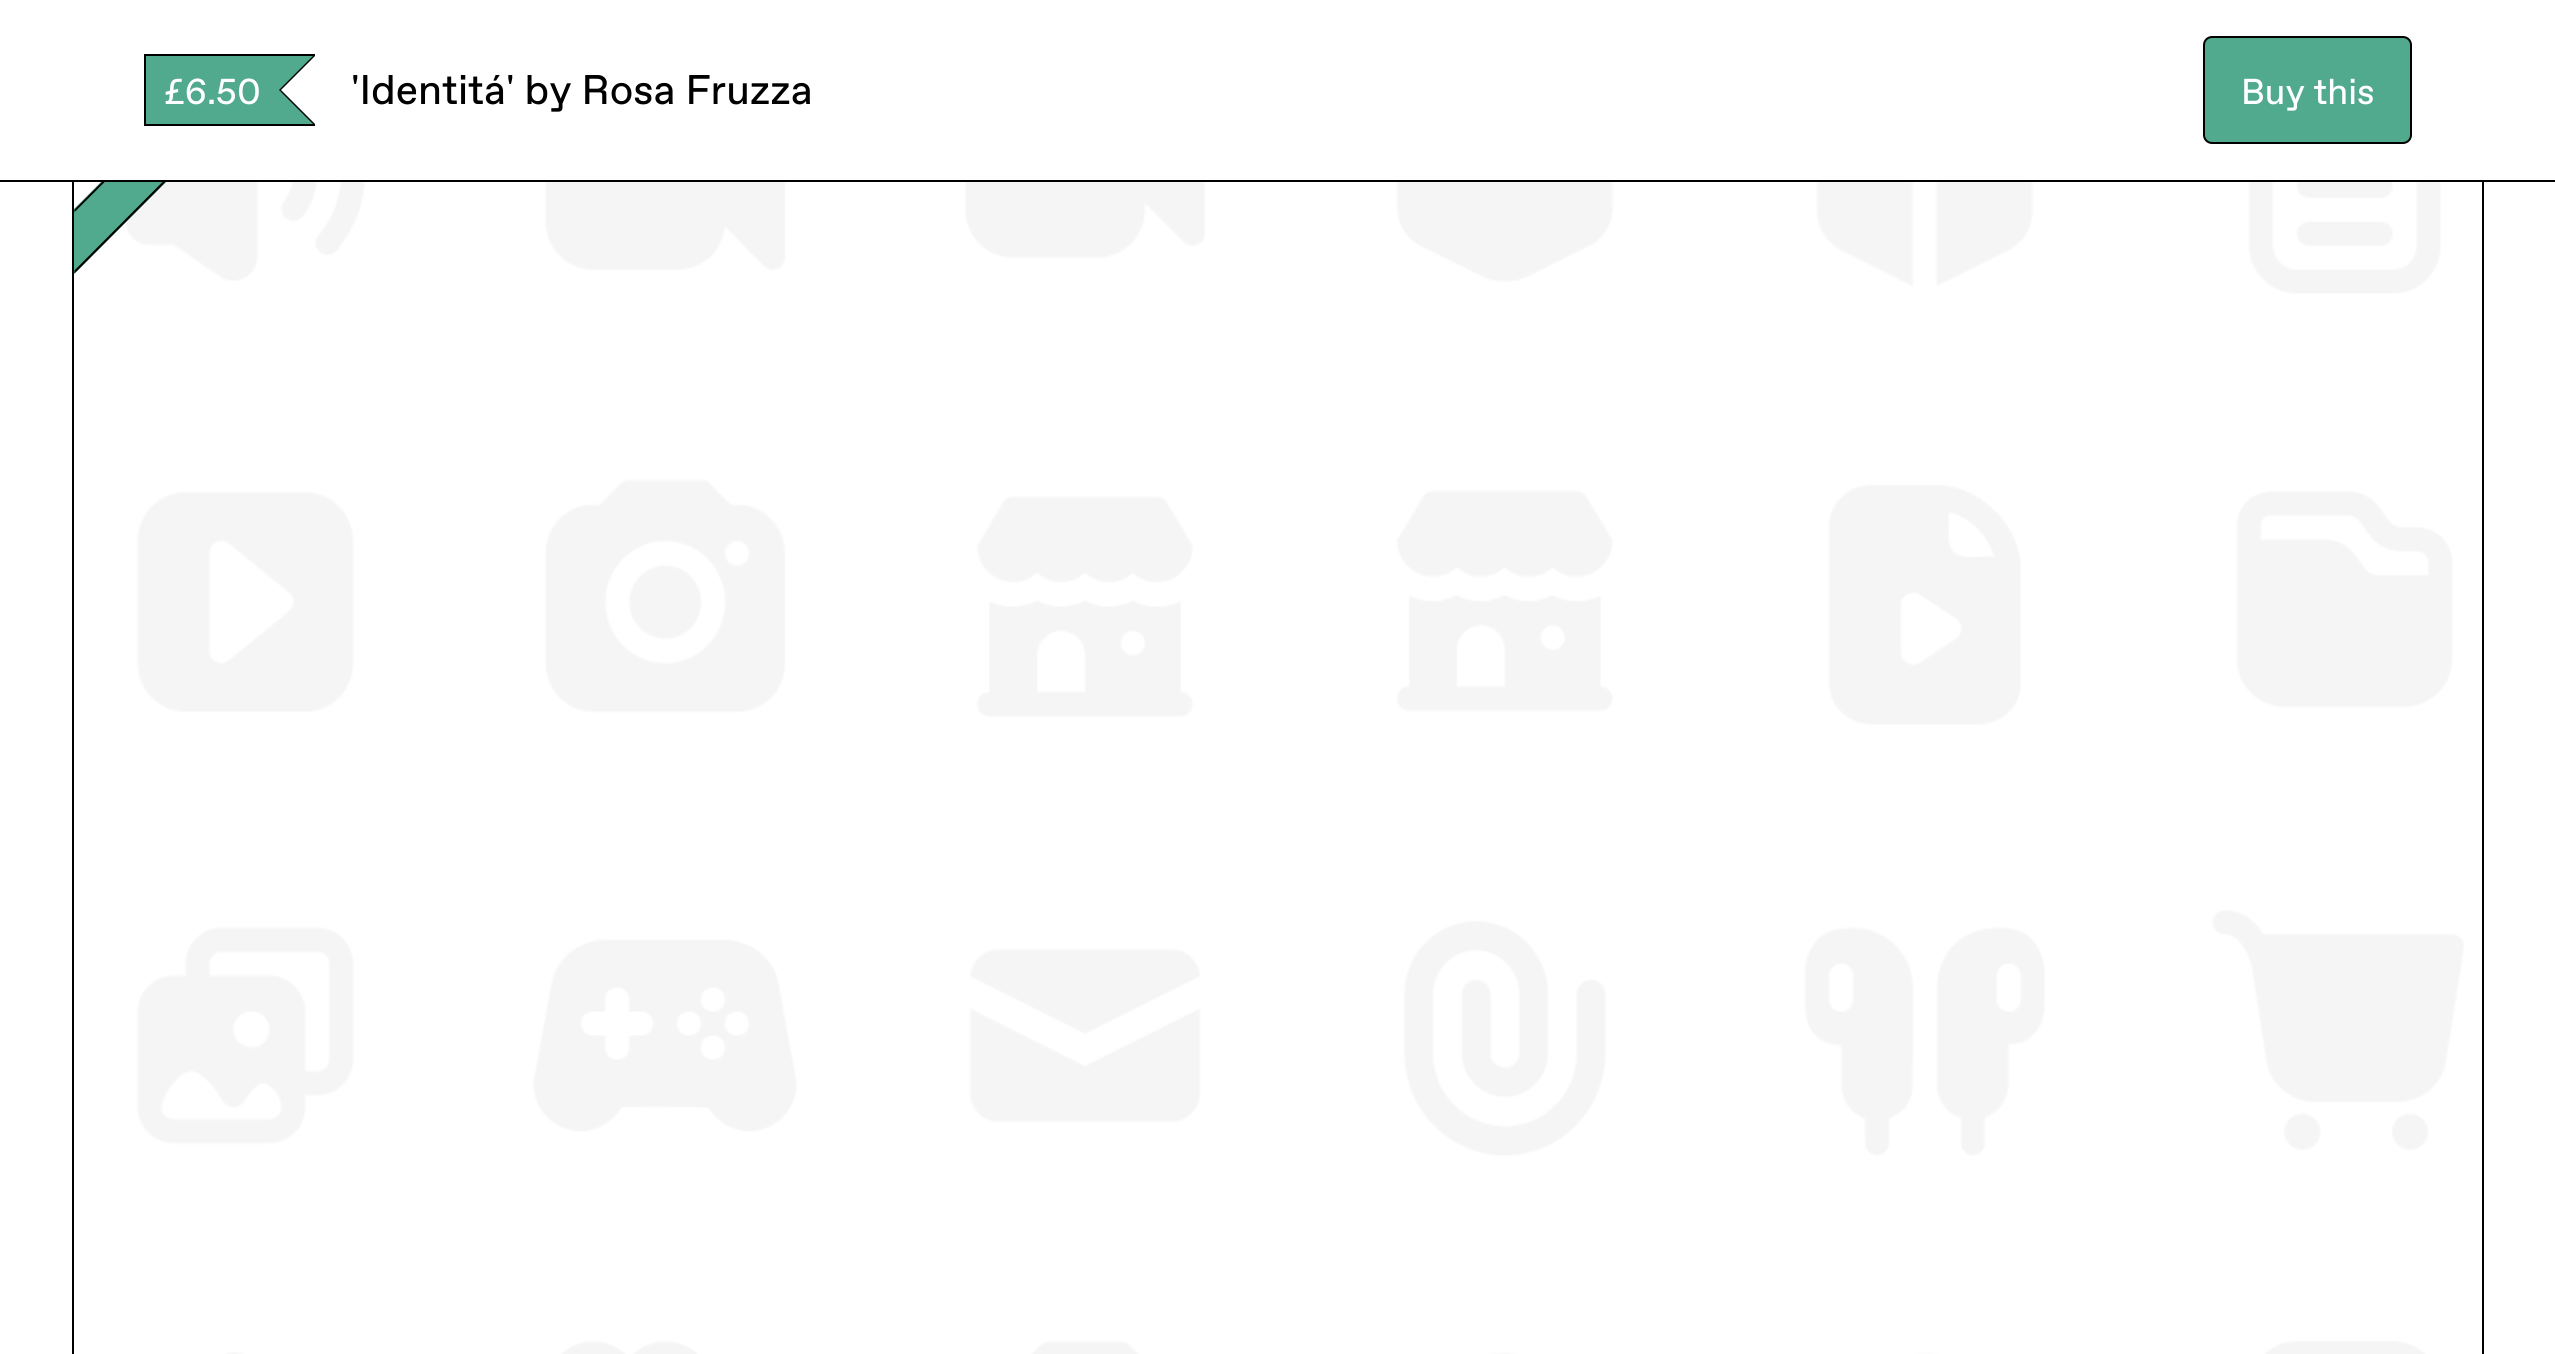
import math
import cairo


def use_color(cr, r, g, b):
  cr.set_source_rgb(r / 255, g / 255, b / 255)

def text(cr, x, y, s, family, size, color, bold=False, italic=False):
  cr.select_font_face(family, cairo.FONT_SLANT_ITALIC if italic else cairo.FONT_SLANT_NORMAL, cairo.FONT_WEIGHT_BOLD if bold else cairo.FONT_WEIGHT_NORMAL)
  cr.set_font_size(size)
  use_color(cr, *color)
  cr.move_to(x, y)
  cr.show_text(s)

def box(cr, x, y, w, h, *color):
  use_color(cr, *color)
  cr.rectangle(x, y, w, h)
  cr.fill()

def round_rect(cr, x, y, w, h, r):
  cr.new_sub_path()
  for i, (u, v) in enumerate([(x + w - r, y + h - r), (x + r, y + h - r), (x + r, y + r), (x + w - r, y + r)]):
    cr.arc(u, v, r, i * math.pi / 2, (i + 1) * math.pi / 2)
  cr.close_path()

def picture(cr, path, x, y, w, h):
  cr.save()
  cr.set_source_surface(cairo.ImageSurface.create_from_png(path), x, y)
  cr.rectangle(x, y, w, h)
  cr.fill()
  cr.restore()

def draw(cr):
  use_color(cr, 255, 255, 255)
  cr.paint()
  cr.rectangle(73, 145, 2410, 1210)
  use_color(cr, 0, 0, 0)
  cr.stroke()
  picture(cr, "img_01.png", 126, 182, 2338, 1172)
  use_color(cr, 81, 169, 142)
  cr.new_path()
  cr.move_to(74, 209)
  cr.line_to(74, 274)
  cr.line_to(202, 146)
  cr.line_to(137, 146)
  cr.close_path()
  cr.fill()
  cr.save()
  cr.new_path()
  cr.move_to(74.5, 209.5)
  cr.line_to(137.5, 146)
  cr.line_to(201.5, 146)
  cr.line_to(74.5, 273.5)
  cr.close_path()
  cr.clip()
  cr.new_path()
  cr.move_to(43.5, 241.5)
  cr.line_to(169.5, 115.5)
  cr.line_to(200, 146)
  cr.line_to(74.5, 272)
  cr.close_path()
  use_color(cr, 0, 0, 0)
  cr.set_line_width(2.3)
  cr.stroke()
  cr.restore()
  box(cr, 0, 180, 2555, 2, 0, 0, 0)
  box(cr, 72, 144, 2412, 36, 255, 255, 255)
  box(cr, 144, 54, 171, 2, 0, 0, 0)
  box(cr, 144, 124, 171, 2, 0, 0, 0)
  box(cr, 144, 54, 2, 72, 0, 0, 0)
  box(cr, 146, 56, 133, 68, 81, 169, 142)
  use_color(cr, 0, 0, 0)
  cr.new_path()
  cr.move_to(279, 56)
  cr.line_to(315, 56)
  cr.line_to(281, 90)
  cr.close_path()
  cr.fill()
  cr.new_path()
  cr.move_to(315, 124)
  cr.line_to(279, 124)
  cr.line_to(281, 90)
  cr.close_path()
  cr.fill()
  box(cr, 279, 88, 2, 4, 0, 0, 0)
  use_color(cr, 81, 169, 142)
  cr.new_path()
  cr.move_to(277, 56)
  cr.line_to(313, 56)
  cr.line_to(279, 90)
  cr.close_path()
  cr.fill()
  cr.new_path()
  cr.move_to(313, 124)
  cr.line_to(277, 124)
  cr.line_to(279, 90)
  cr.close_path()
  cr.fill()
  round_rect(cr, 2204, 37, 207, 106, 8)
  cr.fill_preserve()
  use_color(cr, 0, 0, 0)
  cr.stroke()
  text(cr, 164, 104, "£6.50", "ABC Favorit", 36, (255, 255, 255))
  text(cr, 351, 104, "'Identitá' by Rosa Fruzza", "ABC Favorit", 41.4, (0, 0, 0))
  text(cr, 2241, 104, "Buy this", "ABC Favorit", 36, (255, 255, 255))


surface = cairo.ImageSurface(cairo.FORMAT_RGB24, 2555, 1354)
cr = cairo.Context(surface)
options = cairo.FontOptions()
options.set_hint_metrics(cairo.HINT_METRICS_OFF)
options.set_hint_style(cairo.HINT_STYLE_NONE)
cr.set_font_options(options)
cr.set_miter_limit(4)
draw(cr)
surface.write_to_png("out.png")
